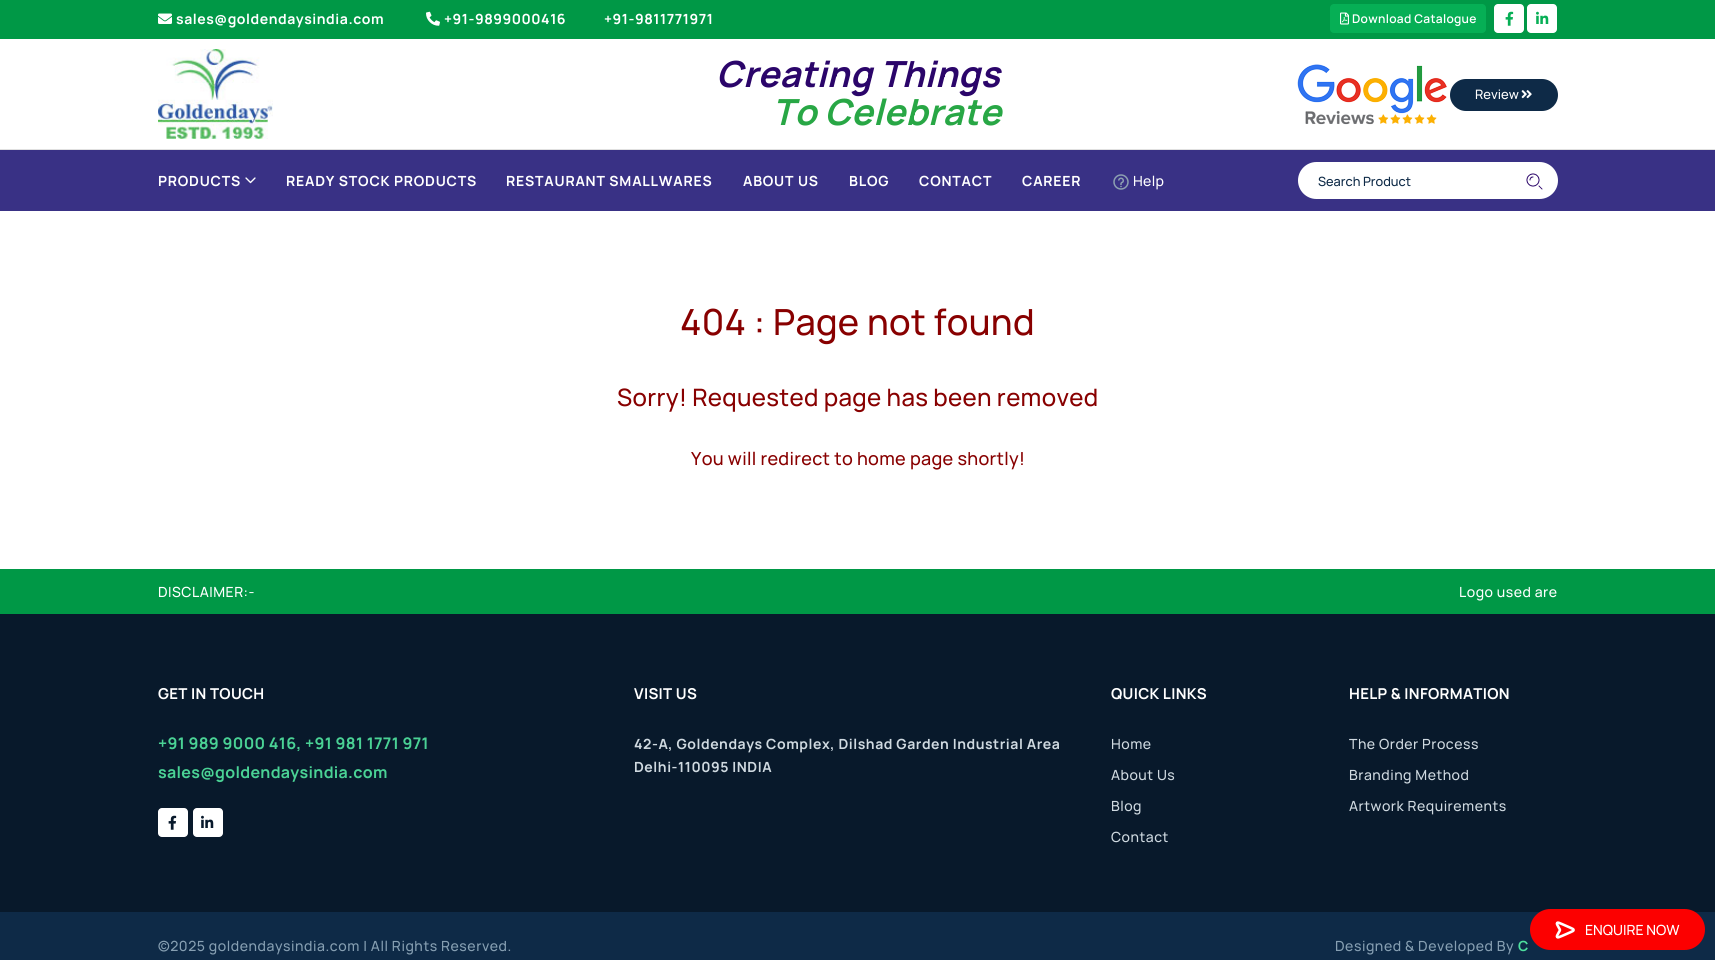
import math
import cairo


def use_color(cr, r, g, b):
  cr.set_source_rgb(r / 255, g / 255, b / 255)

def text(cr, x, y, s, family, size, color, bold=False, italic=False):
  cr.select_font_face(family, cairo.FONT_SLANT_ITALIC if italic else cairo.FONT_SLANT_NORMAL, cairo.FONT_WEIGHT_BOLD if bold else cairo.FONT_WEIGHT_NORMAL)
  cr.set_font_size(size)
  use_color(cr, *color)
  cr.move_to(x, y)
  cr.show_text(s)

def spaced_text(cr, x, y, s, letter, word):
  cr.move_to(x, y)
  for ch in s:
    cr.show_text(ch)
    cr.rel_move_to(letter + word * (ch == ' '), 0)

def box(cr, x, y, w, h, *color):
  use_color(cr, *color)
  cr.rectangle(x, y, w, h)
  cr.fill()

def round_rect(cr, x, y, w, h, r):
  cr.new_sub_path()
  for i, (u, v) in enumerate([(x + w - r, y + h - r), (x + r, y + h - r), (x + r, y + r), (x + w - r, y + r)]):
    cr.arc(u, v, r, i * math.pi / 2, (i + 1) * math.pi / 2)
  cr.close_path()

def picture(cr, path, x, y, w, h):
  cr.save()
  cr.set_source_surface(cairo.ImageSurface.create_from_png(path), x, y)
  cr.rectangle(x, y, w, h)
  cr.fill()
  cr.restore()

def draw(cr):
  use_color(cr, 255, 255, 255)
  cr.paint()
  box(cr, 0, 0, 1715, 39, 0, 152, 70)
  picture(cr, "img_01.png", 158, 13, 14, 11)
  picture(cr, "img_02.png", 426, 11, 14, 15)
  use_color(cr, 6, 175, 85)
  round_rect(cr, 1330, 4, 156, 29, 4)
  cr.fill()
  picture(cr, "img_03.png", 1340, 12, 9, 13)
  use_color(cr, 255, 255, 255)
  round_rect(cr, 1494, 4, 30, 29, 4)
  cr.fill()
  picture(cr, "img_04.png", 1505, 11, 9, 15)
  round_rect(cr, 1527, 4, 30, 29, 4)
  cr.fill()
  picture(cr, "img_05.png", 1536, 11, 13, 13)
  picture(cr, "img_06.png", 158, 49, 115, 90)
  picture(cr, "img_07.png", 1297, 64, 150, 61)
  use_color(cr, 14, 42, 71)
  round_rect(cr, 1450, 79, 108, 32, 16)
  cr.fill()
  picture(cr, "img_08.png", 1521, 90, 11, 9)
  box(cr, 0, 150, 1715, 61, 57, 49, 133)
  box(cr, 0, 149, 1715, 1, 224, 224, 224)
  picture(cr, "img_09.png", 245, 177, 11, 7)
  picture(cr, "img_10.png", 1113, 174, 16, 16)
  use_color(cr, 255, 255, 255)
  round_rect(cr, 1298, 162, 260, 37, 18.5)
  cr.fill()
  picture(cr, "img_11.png", 1526, 173, 17, 17)
  box(cr, 0, 569, 1715, 45, 0, 152, 70)
  box(cr, 0, 614, 1715, 298, 8, 25, 43)
  use_color(cr, 255, 255, 255)
  round_rect(cr, 158, 808, 30, 29, 4)
  cr.fill()
  picture(cr, "img_12.png", 168, 815, 9, 15)
  round_rect(cr, 193, 808, 30, 29, 4)
  cr.fill()
  picture(cr, "img_13.png", 201, 815, 13, 13)
  box(cr, 0, 912, 1715, 48, 14, 42, 71)
  use_color(cr, 252, 0, 0)
  round_rect(cr, 1530, 909, 175, 41, 20.5)
  cr.fill()
  picture(cr, "img_14.png", 1555, 921, 20, 18)
  cr.select_font_face("Manrope", cairo.FONT_SLANT_NORMAL, cairo.FONT_WEIGHT_BOLD)
  cr.set_font_size(14)
  use_color(cr, 255, 255, 255)
  spaced_text(cr, 176, 24, "sales@goldendaysindia.com", 0.55, 0)
  spaced_text(cr, 444, 24, "+91-9899000416", 0.55, 0)
  spaced_text(cr, 604, 24, "+91-9811771971", 0.55, 0)
  cr.select_font_face("Manrope SemiBold")
  cr.set_font_size(12)
  spaced_text(cr, 1352, 23, "Download Catalogue", 0.3, 0)
  cr.select_font_face("Manrope", cairo.FONT_SLANT_ITALIC, cairo.FONT_WEIGHT_BOLD)
  cr.set_font_size(36)
  use_color(cr, 43, 5, 106)
  spaced_text(cr, 716, 87, "Creating Things", 0.3, 0)
  use_color(cr, 40, 167, 69)
  spaced_text(cr, 772, 125, "To Celebrate", 0.3, 0)
  text(cr, 1475, 99, "Review", "Manrope Medium", 13, (255, 255, 255))
  cr.select_font_face("Manrope", cairo.FONT_SLANT_NORMAL, cairo.FONT_WEIGHT_BOLD)
  cr.set_font_size(14)
  spaced_text(cr, 158, 186, "PRODUCTS", 0.8, 0)
  spaced_text(cr, 286, 186, "READY STOCK PRODUCTS", 0.8, 0)
  spaced_text(cr, 506, 186, "RESTAURANT SMALLWARES", 0.8, 0)
  spaced_text(cr, 743, 186, "ABOUT US", 0.8, 0)
  spaced_text(cr, 849, 186, "BLOG", 0.8, 0)
  spaced_text(cr, 919, 186, "CONTACT", 0.8, 0)
  spaced_text(cr, 1022, 186, "CAREER", 0.8, 0)
  cr.select_font_face("Manrope Medium")
  spaced_text(cr, 1133, 186, "Help", 0.3, 0)
  text(cr, 1318, 186, "Search Product", "Manrope Medium", 12.75, (14, 42, 71))
  cr.set_font_size(36)
  use_color(cr, 136, 0, 0)
  spaced_text(cr, 680, 335, "404 : Page not found", 0.3, 0)
  cr.set_font_size(24)
  spaced_text(cr, 617, 406, "Sorry! Requested page has been removed", 0.3, 0)
  cr.set_font_size(18)
  spaced_text(cr, 691, 465, "You will redirect to home page shortly!", 0.3, 0)
  cr.set_font_size(14)
  use_color(cr, 255, 255, 255)
  spaced_text(cr, 158, 597, "DISCLAIMER:-", 0.5, 0)
  spaced_text(cr, 1459, 597, "Logo used are", 0.5, 0)
  cr.select_font_face("Manrope", cairo.FONT_SLANT_NORMAL, cairo.FONT_WEIGHT_BOLD)
  cr.set_font_size(15)
  spaced_text(cr, 158, 699, "GET IN TOUCH", 0.3, 0)
  cr.set_font_size(16)
  use_color(cr, 74, 210, 149)
  spaced_text(cr, 158, 749, "+91 989 9000 416, +91 981 1771 971", 0.3, 0)
  spaced_text(cr, 158, 778, "sales@goldendaysindia.com", 0.3, 0)
  cr.set_font_size(15)
  use_color(cr, 255, 255, 255)
  spaced_text(cr, 634, 699, "VISIT US", 0.3, 0)
  cr.set_font_size(14)
  use_color(cr, 207, 217, 224)
  spaced_text(cr, 634, 749, "42-A, Goldendays Complex, Dilshad Garden Industrial Area", 0.55, 0)
  spaced_text(cr, 634, 772, "Delhi-110095 INDIA", 0.55, 0)
  cr.set_font_size(15)
  use_color(cr, 255, 255, 255)
  spaced_text(cr, 1111, 699, "QUICK LINKS", 0.3, 0)
  cr.select_font_face("Manrope Medium")
  cr.set_font_size(14)
  use_color(cr, 207, 217, 224)
  spaced_text(cr, 1111, 749, "Home", 0.5, 0)
  spaced_text(cr, 1111, 780, "About Us", 0.5, 0)
  spaced_text(cr, 1111, 811, "Blog", 0.5, 0)
  spaced_text(cr, 1111, 842, "Contact", 0.5, 0)
  cr.select_font_face("Manrope", cairo.FONT_SLANT_NORMAL, cairo.FONT_WEIGHT_BOLD)
  cr.set_font_size(15)
  use_color(cr, 255, 255, 255)
  spaced_text(cr, 1349, 699, "HELP & INFORMATION", 0.3, 0)
  cr.select_font_face("Manrope Medium")
  cr.set_font_size(14)
  use_color(cr, 207, 217, 224)
  spaced_text(cr, 1349, 749, "The Order Process", 0.5, 0)
  spaced_text(cr, 1349, 780, "Branding Method", 0.5, 0)
  spaced_text(cr, 1349, 811, "Artwork Requirements", 0.5, 0)
  text(cr, 1585, 935, "ENQUIRE NOW", "Manrope Medium", 14, (255, 255, 255))
  use_color(cr, 134, 159, 178)
  spaced_text(cr, 158, 951, "©2025 goldendaysindia.com | All Rights Reserved.", 0.55, 0)
  spaced_text(cr, 1335, 951, "Designed & Developed By", 0.55, 0)
  cr.select_font_face("Manrope", cairo.FONT_SLANT_NORMAL, cairo.FONT_WEIGHT_BOLD)
  use_color(cr, 78, 223, 158)
  spaced_text(cr, 1518, 951, "C", 0.55, 0)


surface = cairo.ImageSurface(cairo.FORMAT_RGB24, 1715, 960)
cr = cairo.Context(surface)
options = cairo.FontOptions()
options.set_hint_metrics(cairo.HINT_METRICS_OFF)
options.set_hint_style(cairo.HINT_STYLE_NONE)
cr.set_font_options(options)
cr.set_miter_limit(4)
draw(cr)
surface.write_to_png("out.png")
